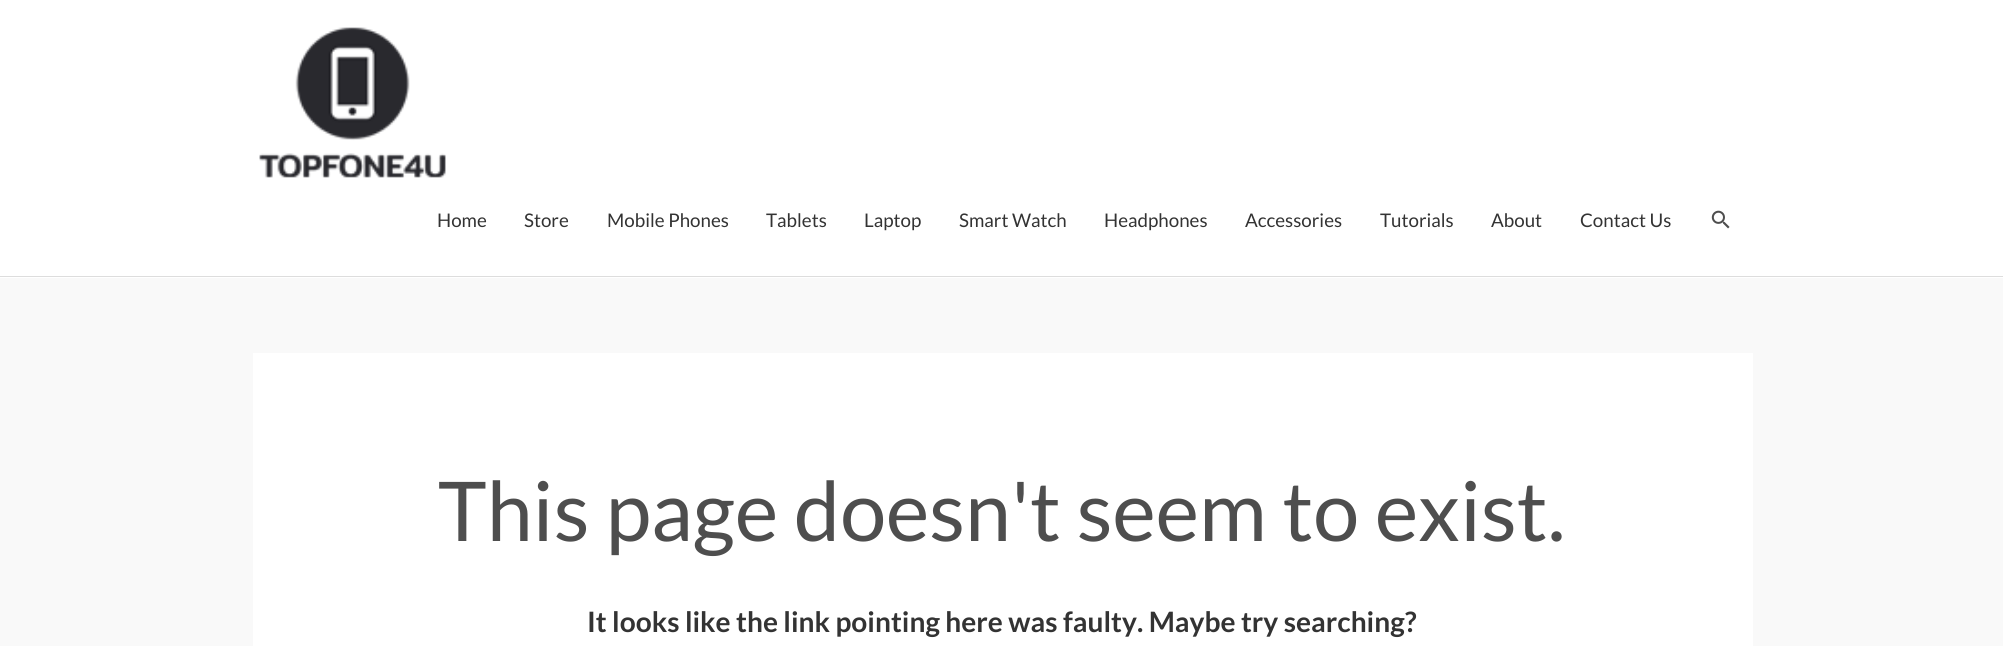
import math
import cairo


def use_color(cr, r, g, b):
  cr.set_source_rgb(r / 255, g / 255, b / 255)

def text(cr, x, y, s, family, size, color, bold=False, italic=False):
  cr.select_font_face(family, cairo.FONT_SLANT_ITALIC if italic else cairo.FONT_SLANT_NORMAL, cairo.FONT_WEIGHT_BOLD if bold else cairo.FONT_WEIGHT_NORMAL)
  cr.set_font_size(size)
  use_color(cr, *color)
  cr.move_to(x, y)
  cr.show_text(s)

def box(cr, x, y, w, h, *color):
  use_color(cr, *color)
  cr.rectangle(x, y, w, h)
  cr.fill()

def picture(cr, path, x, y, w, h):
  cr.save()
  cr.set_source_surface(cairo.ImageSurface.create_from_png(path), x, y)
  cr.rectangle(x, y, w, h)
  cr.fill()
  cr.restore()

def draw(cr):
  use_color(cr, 249, 249, 249)
  cr.paint()
  box(cr, 0, 0, 2003, 278, 255, 255, 255)
  box(cr, 0, 276, 2003, 1, 221, 221, 221)
  picture(cr, "img_01.png", 259, 27, 187, 151)
  picture(cr, "img_02.png", 1711, 210, 19, 19)
  box(cr, 253, 353, 1500, 293, 255, 255, 255)
  text(cr, 437, 227, "Home", "Lato", 18.75, (51, 51, 51))
  text(cr, 524, 227, "Store", "Lato", 18.75, (51, 51, 51))
  text(cr, 607, 227, "Mobile Phones", "Lato", 18.75, (51, 51, 51))
  text(cr, 766, 227, "Tablets", "Lato", 18.75, (51, 51, 51))
  text(cr, 864, 227, "Laptop", "Lato", 18.75, (51, 51, 51))
  text(cr, 959, 227, "Smart Watch", "Lato", 18.75, (51, 51, 51))
  text(cr, 1104, 227, "Headphones", "Lato", 18.75, (51, 51, 51))
  text(cr, 1245, 227, "Accessories", "Lato", 18.75, (51, 51, 51))
  text(cr, 1380, 227, "Tutorials", "Lato", 18.75, (51, 51, 51))
  text(cr, 1491, 227, "About", "Lato", 18.75, (51, 51, 51))
  text(cr, 1580, 227, "Contact Us", "Lato", 18.75, (51, 51, 51))
  text(cr, 438, 541, "This page doesn't seem to exist.", "Lato", 82.5, (78, 78, 78))
  text(cr, 587, 632, "It looks like the link pointing here was faulty. Maybe try searching?", "Lato", 28.1, (51, 51, 51), bold=True)


surface = cairo.ImageSurface(cairo.FORMAT_RGB24, 2003, 646)
cr = cairo.Context(surface)
options = cairo.FontOptions()
options.set_hint_metrics(cairo.HINT_METRICS_OFF)
options.set_hint_style(cairo.HINT_STYLE_NONE)
cr.set_font_options(options)
cr.set_miter_limit(4)
draw(cr)
surface.write_to_png("out.png")
